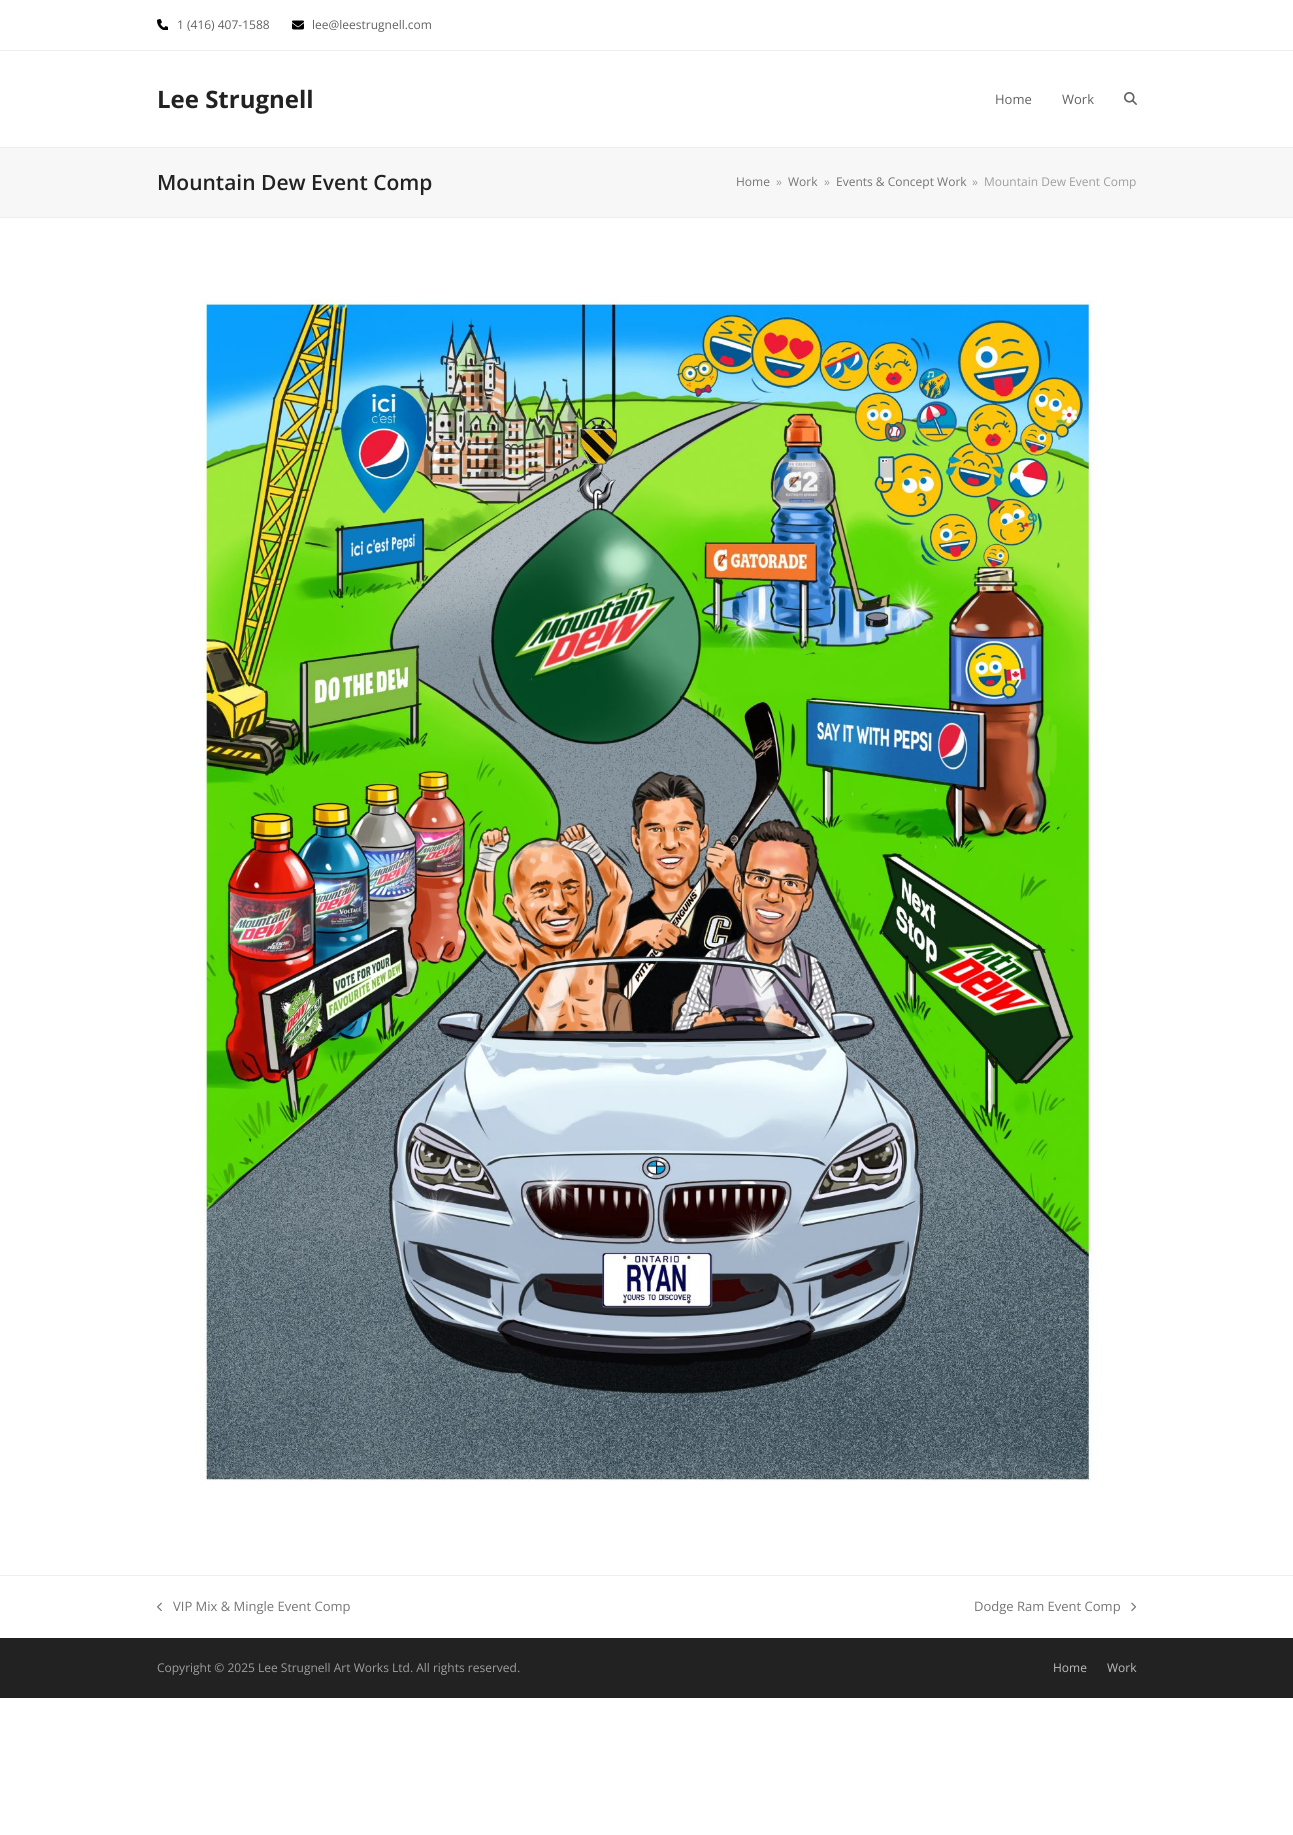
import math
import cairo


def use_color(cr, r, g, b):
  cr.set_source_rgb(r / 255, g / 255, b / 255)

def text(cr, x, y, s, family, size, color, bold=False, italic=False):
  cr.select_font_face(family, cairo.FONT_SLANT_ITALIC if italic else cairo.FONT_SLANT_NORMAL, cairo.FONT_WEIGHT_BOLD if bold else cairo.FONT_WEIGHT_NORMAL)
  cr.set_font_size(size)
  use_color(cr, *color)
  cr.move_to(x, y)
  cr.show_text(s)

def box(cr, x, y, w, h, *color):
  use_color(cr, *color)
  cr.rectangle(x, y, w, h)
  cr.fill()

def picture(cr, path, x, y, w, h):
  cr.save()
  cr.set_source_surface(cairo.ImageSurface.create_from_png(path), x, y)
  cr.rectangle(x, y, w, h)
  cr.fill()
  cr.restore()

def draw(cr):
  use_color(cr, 255, 255, 255)
  cr.paint()
  box(cr, 0, 50, 1293, 1, 238, 238, 238)
  picture(cr, "img_01.png", 157, 19, 11, 11)
  picture(cr, "img_02.png", 292, 20, 12, 10)
  picture(cr, "img_03.png", 1124, 92, 13, 13)
  box(cr, 0, 148, 1293, 69, 247, 247, 247)
  box(cr, 0, 147, 1293, 1, 238, 238, 238)
  box(cr, 0, 217, 1293, 1, 238, 238, 238)
  picture(cr, "img_04.png", 198, 299, 900, 1182)
  box(cr, 0, 1575, 1293, 1, 238, 238, 238)
  picture(cr, "img_05.png", 157, 1602, 5, 10)
  picture(cr, "img_06.png", 1131, 1602, 5, 10)
  box(cr, 0, 1638, 1293, 60, 34, 34, 34)
  text(cr, 177, 29, "1 (416) 407-1588", "Open Sans", 12, (97, 97, 97))
  text(cr, 312, 29, "lee@leestrugnell.com", "Open Sans", 12, (97, 97, 97))
  text(cr, 157, 108, "Lee Strugnell", "Open Sans", 24, (34, 34, 34), bold=True)
  text(cr, 995, 104, "Home", "Open Sans", 13, (97, 97, 97))
  text(cr, 1062, 104, "Work", "Open Sans", 13, (97, 97, 97))
  text(cr, 157, 190, "Mountain Dew Event Comp", "Open Sans SemiBold", 21, (34, 34, 34))
  text(cr, 736, 186, "Home", "Open Sans", 12, (117, 117, 117))
  text(cr, 776, 186, "»", "Open Sans", 12, (158, 158, 158))
  text(cr, 788, 186, "Work", "Open Sans", 12, (117, 117, 117))
  text(cr, 824, 186, "»", "Open Sans", 12, (158, 158, 158))
  text(cr, 836, 186, "Events & Concept Work", "Open Sans", 12, (117, 117, 117))
  text(cr, 972, 186, "»", "Open Sans", 12, (158, 158, 158))
  text(cr, 984, 186, "Mountain Dew Event Comp", "Open Sans", 12, (158, 158, 158))
  text(cr, 173, 1611, "VIP Mix & Mingle Event Comp", "Open Sans", 13, (117, 117, 117))
  text(cr, 974, 1611, "Dodge Ram Event Comp", "Open Sans", 13, (117, 117, 117))
  text(cr, 157, 1672, "Copyright © 2025 Lee Strugnell Art Works Ltd. All rights reserved.", "Open Sans", 12, (158, 158, 158))
  text(cr, 1053, 1672, "Home", "Open Sans", 12, (189, 189, 189))
  text(cr, 1107, 1672, "Work", "Open Sans", 12, (189, 189, 189))


surface = cairo.ImageSurface(cairo.FORMAT_RGB24, 1293, 1835)
cr = cairo.Context(surface)
options = cairo.FontOptions()
options.set_hint_metrics(cairo.HINT_METRICS_OFF)
options.set_hint_style(cairo.HINT_STYLE_NONE)
cr.set_font_options(options)
cr.set_miter_limit(4)
draw(cr)
surface.write_to_png("out.png")
